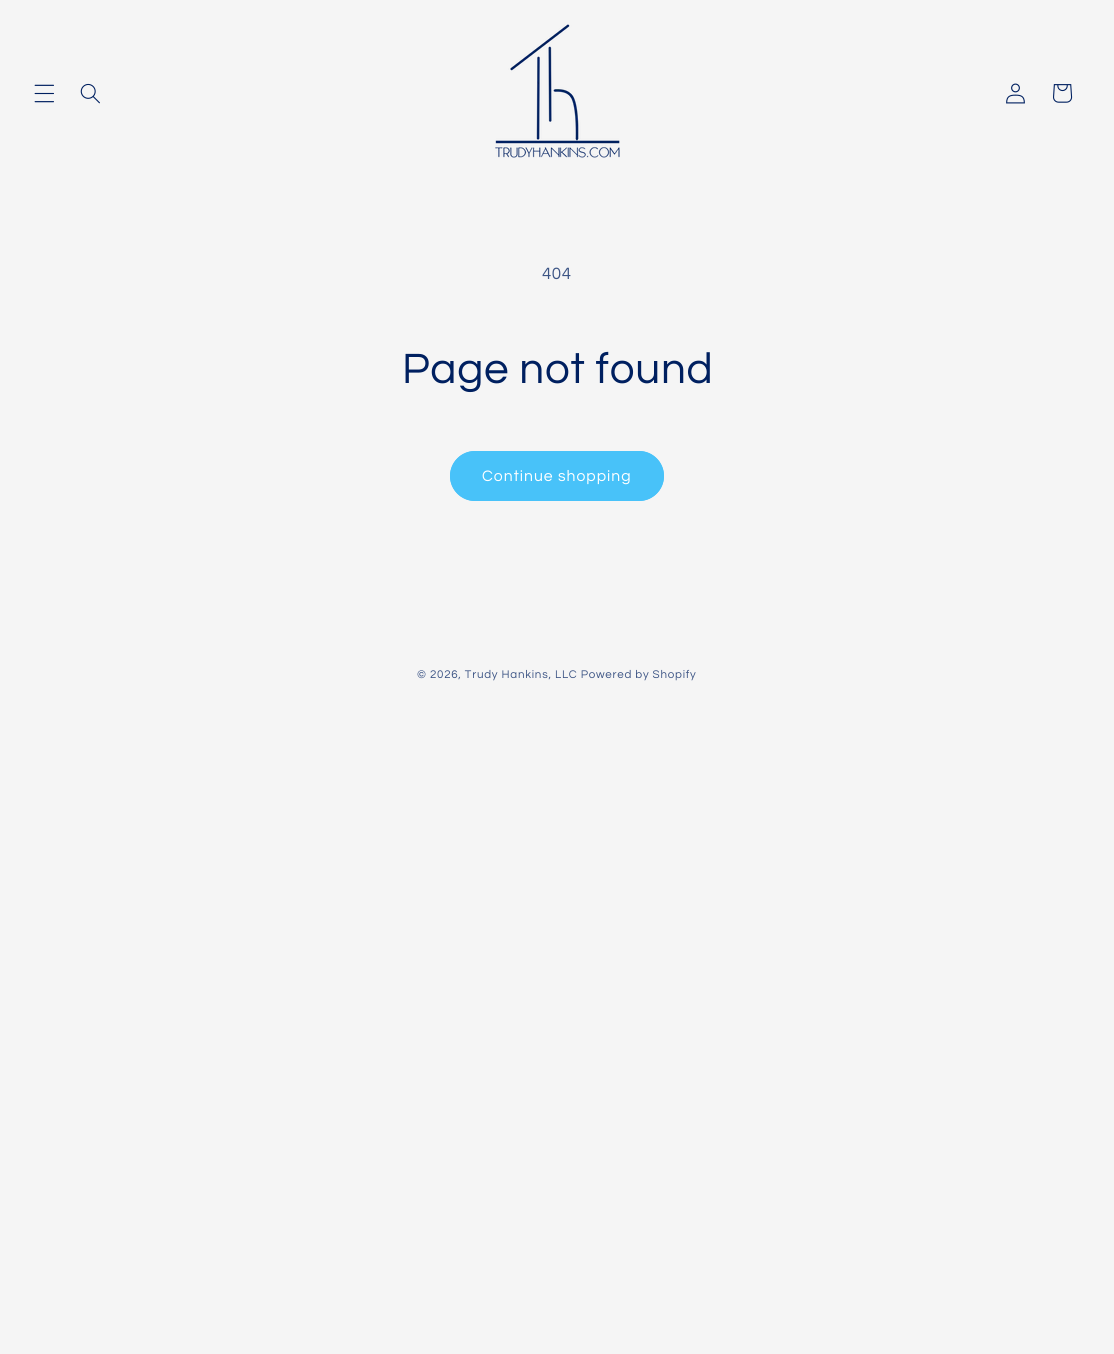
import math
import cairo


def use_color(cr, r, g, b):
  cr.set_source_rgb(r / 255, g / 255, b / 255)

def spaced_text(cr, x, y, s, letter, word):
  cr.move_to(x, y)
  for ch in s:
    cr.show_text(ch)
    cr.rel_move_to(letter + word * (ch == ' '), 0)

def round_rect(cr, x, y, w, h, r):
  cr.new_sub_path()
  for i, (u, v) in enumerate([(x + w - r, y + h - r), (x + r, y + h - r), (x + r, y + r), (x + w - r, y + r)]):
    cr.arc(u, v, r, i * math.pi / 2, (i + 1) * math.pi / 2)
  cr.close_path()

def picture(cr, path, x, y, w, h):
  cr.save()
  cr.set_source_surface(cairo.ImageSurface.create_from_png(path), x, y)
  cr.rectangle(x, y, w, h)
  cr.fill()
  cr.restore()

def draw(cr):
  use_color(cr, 245, 245, 245)
  cr.paint()
  picture(cr, "img_01.png", 34, 84, 20, 19)
  picture(cr, "img_02.png", 80, 83, 20, 21)
  picture(cr, "img_03.png", 495, 24, 125, 134)
  picture(cr, "img_04.png", 1006, 83, 19, 21)
  picture(cr, "img_05.png", 1053, 84, 20, 19)
  use_color(cr, 72, 194, 249)
  round_rect(cr, 450, 451, 214, 50, 25)
  cr.fill()
  round_rect(cr, 450.5, 451.5, 213, 49, 24.5)
  cr.set_line_width(1)
  cr.stroke()
  cr.select_font_face("Questrial")
  cr.set_font_size(17)
  use_color(cr, 61, 85, 133)
  spaced_text(cr, 542, 279, "404", 0.5, 0)
  cr.set_font_size(44)
  use_color(cr, 0, 32, 96)
  spaced_text(cr, 402, 383, "Page not found", 0.7, 0)
  cr.set_font_size(15.75)
  use_color(cr, 255, 255, 255)
  spaced_text(cr, 482, 481, "Continue shopping", 1, 0)
  cr.set_font_size(11.55)
  use_color(cr, 61, 85, 133)
  spaced_text(cr, 417, 678, "© 2026, Trudy Hankins, LLC Powered by Shopify", 0.75, 0)


surface = cairo.ImageSurface(cairo.FORMAT_RGB24, 1114, 1354)
cr = cairo.Context(surface)
options = cairo.FontOptions()
options.set_hint_metrics(cairo.HINT_METRICS_OFF)
options.set_hint_style(cairo.HINT_STYLE_NONE)
cr.set_font_options(options)
cr.set_miter_limit(4)
draw(cr)
surface.write_to_png("out.png")
